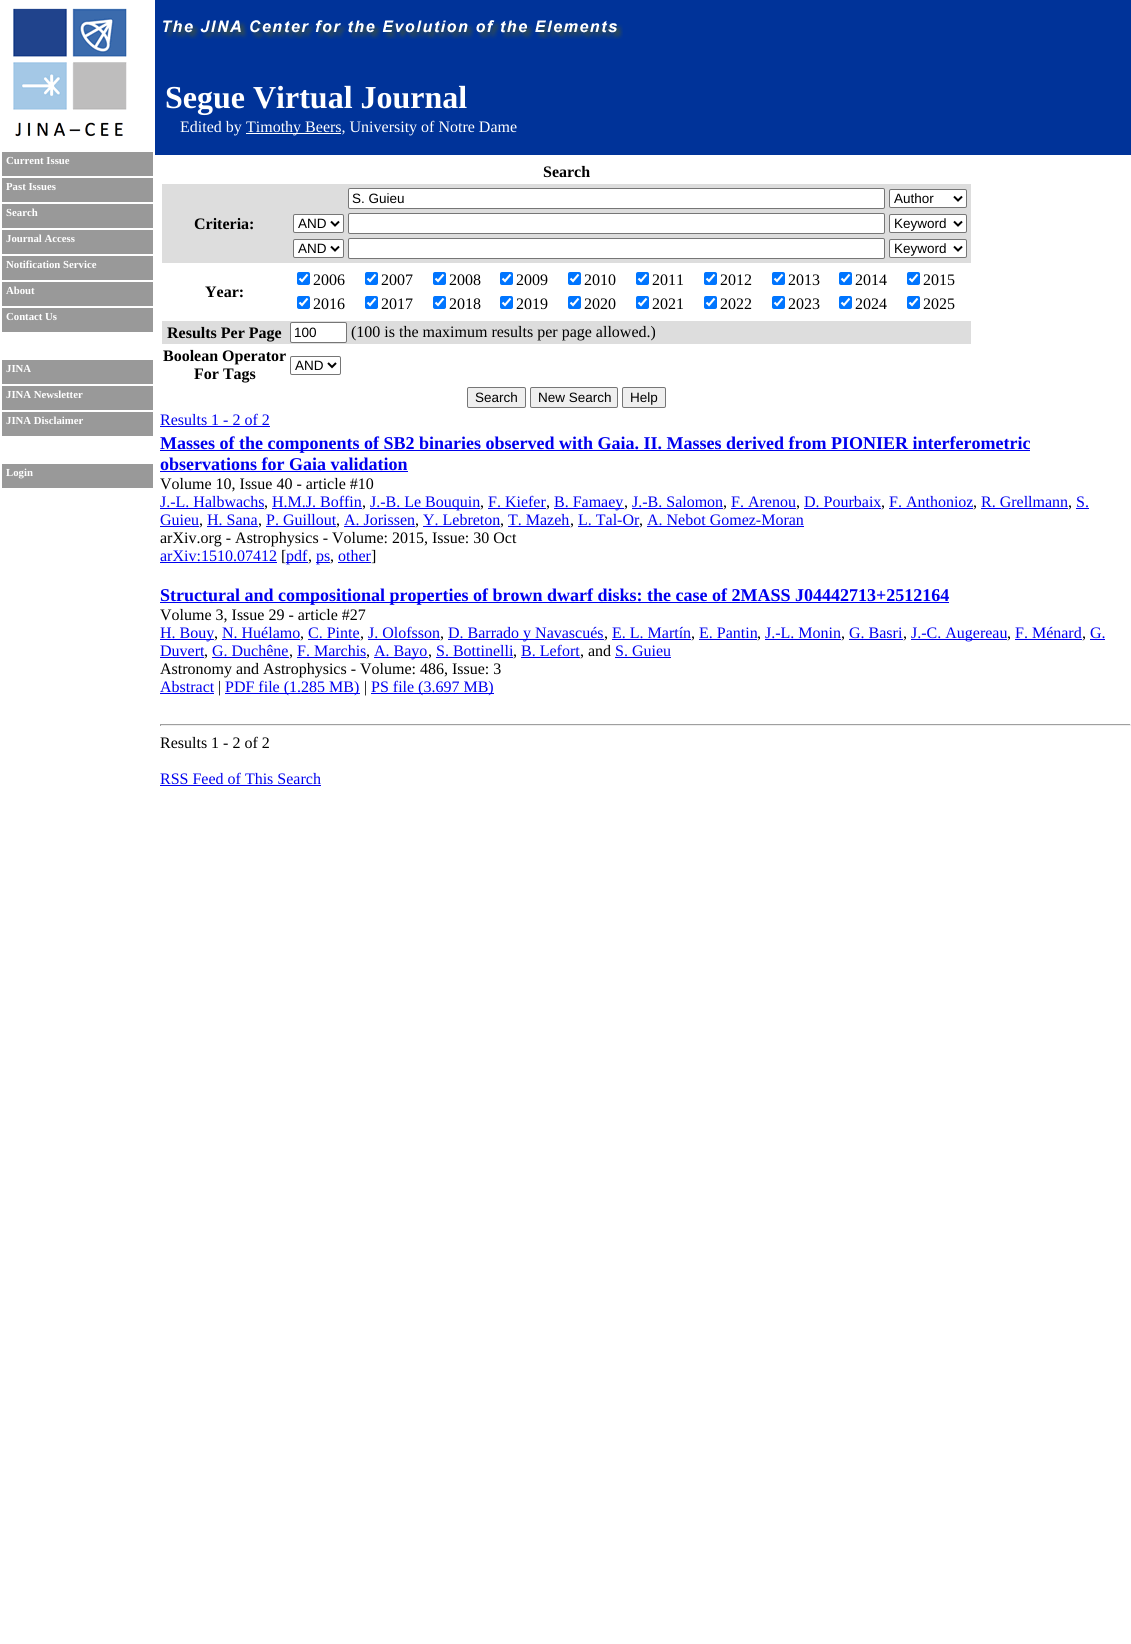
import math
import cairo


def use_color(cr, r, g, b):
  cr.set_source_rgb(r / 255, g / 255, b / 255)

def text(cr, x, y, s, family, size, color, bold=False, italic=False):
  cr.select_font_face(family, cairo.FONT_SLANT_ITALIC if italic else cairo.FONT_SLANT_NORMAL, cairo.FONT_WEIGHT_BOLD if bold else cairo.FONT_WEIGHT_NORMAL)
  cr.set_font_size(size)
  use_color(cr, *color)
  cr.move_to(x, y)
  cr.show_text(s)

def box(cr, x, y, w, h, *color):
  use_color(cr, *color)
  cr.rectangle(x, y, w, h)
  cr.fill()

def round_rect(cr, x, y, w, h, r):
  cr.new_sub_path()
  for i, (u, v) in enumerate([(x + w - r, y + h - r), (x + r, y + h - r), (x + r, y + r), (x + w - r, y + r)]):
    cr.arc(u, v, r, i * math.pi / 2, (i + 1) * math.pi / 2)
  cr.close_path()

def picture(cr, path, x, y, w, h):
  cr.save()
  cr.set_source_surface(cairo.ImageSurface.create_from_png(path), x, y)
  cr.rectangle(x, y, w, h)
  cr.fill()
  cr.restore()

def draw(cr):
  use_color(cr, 255, 255, 255)
  cr.paint()
  box(cr, 155, 0, 976, 155, 0, 51, 153)
  picture(cr, "img_01.png", 163, 20, 460, 19)
  box(cr, 246, 133, 95, 1, 255, 255, 255)
  picture(cr, "img_02.png", 13, 8, 114, 129)
  box(cr, 2, 152, 151, 24, 153, 153, 153)
  box(cr, 2, 178, 151, 24, 153, 153, 153)
  box(cr, 2, 204, 151, 24, 153, 153, 153)
  box(cr, 2, 230, 151, 24, 153, 153, 153)
  box(cr, 2, 256, 151, 24, 153, 153, 153)
  box(cr, 2, 282, 151, 24, 153, 153, 153)
  box(cr, 2, 308, 151, 24, 153, 153, 153)
  box(cr, 2, 360, 151, 24, 153, 153, 153)
  box(cr, 2, 386, 151, 24, 153, 153, 153)
  box(cr, 2, 412, 151, 24, 153, 153, 153)
  box(cr, 2, 464, 151, 24, 153, 153, 153)
  box(cr, 162, 184, 809, 79, 221, 221, 221)
  use_color(cr, 255, 255, 255)
  round_rect(cr, 348.5, 188.5, 536, 20, 1.5)
  cr.fill_preserve()
  use_color(cr, 118, 118, 118)
  cr.set_line_width(1)
  cr.stroke()
  use_color(cr, 255, 255, 255)
  round_rect(cr, 889.5, 189.5, 77, 18, 1.5)
  cr.fill_preserve()
  use_color(cr, 118, 118, 118)
  cr.stroke()
  cr.new_path()
  cr.move_to(954, 196.5)
  cr.line_to(958, 200.5)
  cr.line_to(962, 196.5)
  use_color(cr, 0, 0, 0)
  cr.set_line_width(2)
  cr.stroke()
  use_color(cr, 255, 255, 255)
  round_rect(cr, 293.5, 214.5, 50, 18, 1.5)
  cr.fill_preserve()
  use_color(cr, 118, 118, 118)
  cr.set_line_width(1)
  cr.stroke()
  cr.new_path()
  cr.move_to(331, 221.5)
  cr.line_to(335, 225.5)
  cr.line_to(339, 221.5)
  use_color(cr, 0, 0, 0)
  cr.set_line_width(2)
  cr.stroke()
  use_color(cr, 255, 255, 255)
  round_rect(cr, 348.5, 213.5, 536, 20, 1.5)
  cr.fill_preserve()
  use_color(cr, 118, 118, 118)
  cr.set_line_width(1)
  cr.stroke()
  use_color(cr, 255, 255, 255)
  round_rect(cr, 889.5, 214.5, 77, 18, 1.5)
  cr.fill_preserve()
  use_color(cr, 118, 118, 118)
  cr.stroke()
  cr.new_path()
  cr.move_to(954, 221.5)
  cr.line_to(958, 225.5)
  cr.line_to(962, 221.5)
  use_color(cr, 0, 0, 0)
  cr.set_line_width(2)
  cr.stroke()
  use_color(cr, 255, 255, 255)
  round_rect(cr, 293.5, 239.5, 50, 18, 1.5)
  cr.fill_preserve()
  use_color(cr, 118, 118, 118)
  cr.set_line_width(1)
  cr.stroke()
  cr.new_path()
  cr.move_to(331, 246.5)
  cr.line_to(335, 250.5)
  cr.line_to(339, 246.5)
  use_color(cr, 0, 0, 0)
  cr.set_line_width(2)
  cr.stroke()
  use_color(cr, 255, 255, 255)
  round_rect(cr, 348.5, 238.5, 536, 20, 1.5)
  cr.fill_preserve()
  use_color(cr, 118, 118, 118)
  cr.set_line_width(1)
  cr.stroke()
  use_color(cr, 255, 255, 255)
  round_rect(cr, 889.5, 239.5, 77, 18, 1.5)
  cr.fill_preserve()
  use_color(cr, 118, 118, 118)
  cr.stroke()
  cr.new_path()
  cr.move_to(954, 246.5)
  cr.line_to(958, 250.5)
  cr.line_to(962, 246.5)
  use_color(cr, 0, 0, 0)
  cr.set_line_width(2)
  cr.stroke()
  use_color(cr, 0, 117, 255)
  round_rect(cr, 297, 272, 13, 13, 2)
  cr.fill()
  cr.new_path()
  cr.move_to(299.5, 278.5)
  cr.line_to(302, 281)
  cr.line_to(307.5, 274.5)
  use_color(cr, 255, 255, 255)
  cr.set_line_width(2.1)
  cr.stroke()
  use_color(cr, 0, 117, 255)
  round_rect(cr, 365, 272, 13, 13, 2)
  cr.fill()
  cr.new_path()
  cr.move_to(367.5, 278.5)
  cr.line_to(370, 281)
  cr.line_to(375.5, 274.5)
  use_color(cr, 255, 255, 255)
  cr.stroke()
  use_color(cr, 0, 117, 255)
  round_rect(cr, 433, 272, 13, 13, 2)
  cr.fill()
  cr.new_path()
  cr.move_to(435.5, 278.5)
  cr.line_to(438, 281)
  cr.line_to(443.5, 274.5)
  use_color(cr, 255, 255, 255)
  cr.stroke()
  use_color(cr, 0, 117, 255)
  round_rect(cr, 500, 272, 13, 13, 2)
  cr.fill()
  cr.new_path()
  cr.move_to(502.5, 278.5)
  cr.line_to(505, 281)
  cr.line_to(510.5, 274.5)
  use_color(cr, 255, 255, 255)
  cr.stroke()
  use_color(cr, 0, 117, 255)
  round_rect(cr, 568, 272, 13, 13, 2)
  cr.fill()
  cr.new_path()
  cr.move_to(570.5, 278.5)
  cr.line_to(573, 281)
  cr.line_to(578.5, 274.5)
  use_color(cr, 255, 255, 255)
  cr.stroke()
  use_color(cr, 0, 117, 255)
  round_rect(cr, 636, 272, 13, 13, 2)
  cr.fill()
  cr.new_path()
  cr.move_to(638.5, 278.5)
  cr.line_to(641, 281)
  cr.line_to(646.5, 274.5)
  use_color(cr, 255, 255, 255)
  cr.stroke()
  use_color(cr, 0, 117, 255)
  round_rect(cr, 704, 272, 13, 13, 2)
  cr.fill()
  cr.new_path()
  cr.move_to(706.5, 278.5)
  cr.line_to(709, 281)
  cr.line_to(714.5, 274.5)
  use_color(cr, 255, 255, 255)
  cr.stroke()
  use_color(cr, 0, 117, 255)
  round_rect(cr, 772, 272, 13, 13, 2)
  cr.fill()
  cr.new_path()
  cr.move_to(774.5, 278.5)
  cr.line_to(777, 281)
  cr.line_to(782.5, 274.5)
  use_color(cr, 255, 255, 255)
  cr.stroke()
  use_color(cr, 0, 117, 255)
  round_rect(cr, 839, 272, 13, 13, 2)
  cr.fill()
  cr.new_path()
  cr.move_to(841.5, 278.5)
  cr.line_to(844, 281)
  cr.line_to(849.5, 274.5)
  use_color(cr, 255, 255, 255)
  cr.stroke()
  use_color(cr, 0, 117, 255)
  round_rect(cr, 907, 272, 13, 13, 2)
  cr.fill()
  cr.new_path()
  cr.move_to(909.5, 278.5)
  cr.line_to(912, 281)
  cr.line_to(917.5, 274.5)
  use_color(cr, 255, 255, 255)
  cr.stroke()
  use_color(cr, 0, 117, 255)
  round_rect(cr, 297, 296, 13, 13, 2)
  cr.fill()
  cr.new_path()
  cr.move_to(299.5, 302.5)
  cr.line_to(302, 305)
  cr.line_to(307.5, 298.5)
  use_color(cr, 255, 255, 255)
  cr.stroke()
  use_color(cr, 0, 117, 255)
  round_rect(cr, 365, 296, 13, 13, 2)
  cr.fill()
  cr.new_path()
  cr.move_to(367.5, 302.5)
  cr.line_to(370, 305)
  cr.line_to(375.5, 298.5)
  use_color(cr, 255, 255, 255)
  cr.stroke()
  use_color(cr, 0, 117, 255)
  round_rect(cr, 433, 296, 13, 13, 2)
  cr.fill()
  cr.new_path()
  cr.move_to(435.5, 302.5)
  cr.line_to(438, 305)
  cr.line_to(443.5, 298.5)
  use_color(cr, 255, 255, 255)
  cr.stroke()
  use_color(cr, 0, 117, 255)
  round_rect(cr, 500, 296, 13, 13, 2)
  cr.fill()
  cr.new_path()
  cr.move_to(502.5, 302.5)
  cr.line_to(505, 305)
  cr.line_to(510.5, 298.5)
  use_color(cr, 255, 255, 255)
  cr.stroke()
  use_color(cr, 0, 117, 255)
  round_rect(cr, 568, 296, 13, 13, 2)
  cr.fill()
  cr.new_path()
  cr.move_to(570.5, 302.5)
  cr.line_to(573, 305)
  cr.line_to(578.5, 298.5)
  use_color(cr, 255, 255, 255)
  cr.stroke()
  use_color(cr, 0, 117, 255)
  round_rect(cr, 636, 296, 13, 13, 2)
  cr.fill()
  cr.new_path()
  cr.move_to(638.5, 302.5)
  cr.line_to(641, 305)
  cr.line_to(646.5, 298.5)
  use_color(cr, 255, 255, 255)
  cr.stroke()
  use_color(cr, 0, 117, 255)
  round_rect(cr, 704, 296, 13, 13, 2)
  cr.fill()
  cr.new_path()
  cr.move_to(706.5, 302.5)
  cr.line_to(709, 305)
  cr.line_to(714.5, 298.5)
  use_color(cr, 255, 255, 255)
  cr.stroke()
  use_color(cr, 0, 117, 255)
  round_rect(cr, 772, 296, 13, 13, 2)
  cr.fill()
  cr.new_path()
  cr.move_to(774.5, 302.5)
  cr.line_to(777, 305)
  cr.line_to(782.5, 298.5)
  use_color(cr, 255, 255, 255)
  cr.stroke()
  use_color(cr, 0, 117, 255)
  round_rect(cr, 839, 296, 13, 13, 2)
  cr.fill()
  cr.new_path()
  cr.move_to(841.5, 302.5)
  cr.line_to(844, 305)
  cr.line_to(849.5, 298.5)
  use_color(cr, 255, 255, 255)
  cr.stroke()
  use_color(cr, 0, 117, 255)
  round_rect(cr, 907, 296, 13, 13, 2)
  cr.fill()
  cr.new_path()
  cr.move_to(909.5, 302.5)
  cr.line_to(912, 305)
  cr.line_to(917.5, 298.5)
  use_color(cr, 255, 255, 255)
  cr.stroke()
  box(cr, 162, 321, 809, 23, 221, 221, 221)
  use_color(cr, 255, 255, 255)
  round_rect(cr, 290.5, 322.5, 56, 20, 1.5)
  cr.fill_preserve()
  use_color(cr, 118, 118, 118)
  cr.set_line_width(1)
  cr.stroke()
  round_rect(cr, 290.5, 356.5, 50, 18, 1.5)
  cr.stroke()
  cr.new_path()
  cr.move_to(328, 363)
  cr.line_to(332, 367)
  cr.line_to(336, 363)
  use_color(cr, 0, 0, 0)
  cr.set_line_width(2)
  cr.stroke()
  use_color(cr, 239, 239, 239)
  round_rect(cr, 467.5, 387.5, 58, 20, 1.5)
  cr.fill_preserve()
  use_color(cr, 118, 118, 118)
  cr.set_line_width(1)
  cr.stroke()
  use_color(cr, 239, 239, 239)
  round_rect(cr, 530.5, 387.5, 87, 20, 1.5)
  cr.fill_preserve()
  use_color(cr, 118, 118, 118)
  cr.stroke()
  use_color(cr, 239, 239, 239)
  round_rect(cr, 622.5, 387.5, 43, 20, 1.5)
  cr.fill_preserve()
  use_color(cr, 118, 118, 118)
  cr.stroke()
  box(cr, 160, 426, 110, 1, 0, 0, 238)
  box(cr, 160, 450, 870, 1, 0, 0, 238)
  box(cr, 160, 471, 248, 1, 0, 0, 238)
  box(cr, 160, 508, 104, 1, 0, 0, 238)
  box(cr, 272, 508, 90, 1, 0, 0, 238)
  box(cr, 370, 508, 110, 1, 0, 0, 238)
  box(cr, 488, 508, 58, 1, 0, 0, 238)
  box(cr, 554, 508, 70, 1, 0, 0, 238)
  box(cr, 632, 508, 91, 1, 0, 0, 238)
  box(cr, 731, 508, 65, 1, 0, 0, 238)
  box(cr, 804, 508, 77, 1, 0, 0, 238)
  box(cr, 889, 508, 84, 1, 0, 0, 238)
  box(cr, 981, 508, 87, 1, 0, 0, 238)
  box(cr, 1076, 508, 13, 1, 0, 0, 238)
  box(cr, 160, 526, 39, 1, 0, 0, 238)
  box(cr, 207, 526, 51, 1, 0, 0, 238)
  box(cr, 266, 526, 70, 1, 0, 0, 238)
  box(cr, 344, 526, 71, 1, 0, 0, 238)
  box(cr, 423, 526, 77, 1, 0, 0, 238)
  box(cr, 508, 526, 62, 1, 0, 0, 238)
  box(cr, 578, 526, 61, 1, 0, 0, 238)
  box(cr, 647, 526, 157, 1, 0, 0, 238)
  box(cr, 160, 562, 117, 1, 0, 0, 238)
  box(cr, 286, 562, 22, 1, 0, 0, 238)
  box(cr, 316, 562, 14, 1, 0, 0, 238)
  box(cr, 338, 562, 33, 1, 0, 0, 238)
  box(cr, 160, 602, 789, 1, 0, 0, 238)
  box(cr, 160, 639, 54, 1, 0, 0, 238)
  box(cr, 222, 639, 78, 1, 0, 0, 238)
  box(cr, 308, 639, 52, 1, 0, 0, 238)
  box(cr, 368, 639, 72, 1, 0, 0, 238)
  box(cr, 448, 639, 156, 1, 0, 0, 238)
  box(cr, 612, 639, 79, 1, 0, 0, 238)
  box(cr, 699, 639, 58, 1, 0, 0, 238)
  box(cr, 765, 639, 76, 1, 0, 0, 238)
  box(cr, 849, 639, 54, 1, 0, 0, 238)
  box(cr, 911, 639, 96, 1, 0, 0, 238)
  box(cr, 1015, 639, 67, 1, 0, 0, 238)
  box(cr, 1090, 639, 15, 1, 0, 0, 238)
  box(cr, 160, 657, 44, 1, 0, 0, 238)
  box(cr, 212, 657, 77, 1, 0, 0, 238)
  box(cr, 297, 657, 69, 1, 0, 0, 238)
  box(cr, 374, 657, 54, 1, 0, 0, 238)
  box(cr, 436, 657, 77, 1, 0, 0, 238)
  box(cr, 521, 657, 59, 1, 0, 0, 238)
  box(cr, 615, 657, 56, 1, 0, 0, 238)
  box(cr, 160, 693, 54, 1, 0, 0, 238)
  box(cr, 225, 693, 135, 1, 0, 0, 238)
  box(cr, 371, 693, 123, 1, 0, 0, 238)
  box(cr, 160, 724, 971, 1, 159, 159, 159)
  box(cr, 1130, 724, 1, 2, 238, 238, 238)
  box(cr, 160, 725, 971, 1, 238, 238, 238)
  box(cr, 160, 724, 1, 2, 159, 159, 159)
  box(cr, 160, 785, 161, 1, 0, 0, 238)
  text(cr, 165, 108, "Segue Virtual Journal", "Liberation Serif", 32, (255, 255, 255), bold=True)
  text(cr, 180, 132, "Edited by", "Liberation Serif", 16, (255, 255, 255))
  text(cr, 246, 132, "Timothy Beers, University of Notre Dame", "Liberation Serif", 16, (255, 255, 255))
  text(cr, 6, 164, "Current Issue", "Liberation Serif", 10.75, (255, 255, 255), bold=True)
  text(cr, 6, 190, "Past Issues", "Liberation Serif", 10.75, (255, 255, 255), bold=True)
  text(cr, 6, 216, "Search", "Liberation Serif", 10.75, (255, 255, 255), bold=True)
  text(cr, 6, 242, "Journal Access", "Liberation Serif", 10.75, (255, 255, 255), bold=True)
  text(cr, 6, 268, "Notification Service", "Liberation Serif", 10.75, (255, 255, 255), bold=True)
  text(cr, 6, 294, "About", "Liberation Serif", 10.75, (255, 255, 255), bold=True)
  text(cr, 6, 320, "Contact Us", "Liberation Serif", 10.75, (255, 255, 255), bold=True)
  text(cr, 6, 372, "JINA", "Liberation Serif", 10.75, (255, 255, 255), bold=True)
  text(cr, 6, 398, "JINA Newsletter", "Liberation Serif", 10.75, (255, 255, 255), bold=True)
  text(cr, 6, 424, "JINA Disclaimer", "Liberation Serif", 10.75, (255, 255, 255), bold=True)
  text(cr, 6, 476, "Login", "Liberation Serif", 10.75, (255, 255, 255), bold=True)
  text(cr, 543, 177, "Search", "Liberation Serif", 16, (0, 0, 0), bold=True)
  text(cr, 194, 229, "Criteria:", "Liberation Serif", 16, (0, 0, 0), bold=True)
  text(cr, 352, 203, "S. Guieu", "Liberation Sans", 13.5, (0, 0, 0))
  text(cr, 894, 203, "Author", "Liberation Sans", 13.5, (0, 0, 0))
  text(cr, 298, 228, "AND", "Liberation Sans", 13.5, (0, 0, 0))
  text(cr, 894, 228, "Keyword", "Liberation Sans", 13.5, (0, 0, 0))
  text(cr, 298, 253, "AND", "Liberation Sans", 13.5, (0, 0, 0))
  text(cr, 894, 253, "Keyword", "Liberation Sans", 13.5, (0, 0, 0))
  text(cr, 205, 297, "Year:", "Liberation Serif", 16, (0, 0, 0), bold=True)
  text(cr, 313, 285, "2006", "Liberation Serif", 16, (0, 0, 0))
  text(cr, 381, 285, "2007", "Liberation Serif", 16, (0, 0, 0))
  text(cr, 449, 285, "2008", "Liberation Serif", 16, (0, 0, 0))
  text(cr, 516, 285, "2009", "Liberation Serif", 16, (0, 0, 0))
  text(cr, 584, 285, "2010", "Liberation Serif", 16, (0, 0, 0))
  text(cr, 652, 285, "2011", "Liberation Serif", 16, (0, 0, 0))
  text(cr, 720, 285, "2012", "Liberation Serif", 16, (0, 0, 0))
  text(cr, 788, 285, "2013", "Liberation Serif", 16, (0, 0, 0))
  text(cr, 855, 285, "2014", "Liberation Serif", 16, (0, 0, 0))
  text(cr, 923, 285, "2015", "Liberation Serif", 16, (0, 0, 0))
  text(cr, 313, 309, "2016", "Liberation Serif", 16, (0, 0, 0))
  text(cr, 381, 309, "2017", "Liberation Serif", 16, (0, 0, 0))
  text(cr, 449, 309, "2018", "Liberation Serif", 16, (0, 0, 0))
  text(cr, 516, 309, "2019", "Liberation Serif", 16, (0, 0, 0))
  text(cr, 584, 309, "2020", "Liberation Serif", 16, (0, 0, 0))
  text(cr, 652, 309, "2021", "Liberation Serif", 16, (0, 0, 0))
  text(cr, 720, 309, "2022", "Liberation Serif", 16, (0, 0, 0))
  text(cr, 788, 309, "2023", "Liberation Serif", 16, (0, 0, 0))
  text(cr, 855, 309, "2024", "Liberation Serif", 16, (0, 0, 0))
  text(cr, 923, 309, "2025", "Liberation Serif", 16, (0, 0, 0))
  text(cr, 167, 338, "Results Per Page", "Liberation Serif", 16, (0, 0, 0), bold=True)
  text(cr, 294, 337, "100", "Liberation Sans", 13.5, (0, 0, 0))
  text(cr, 351, 337, "(100 is the maximum results per page allowed.)", "Liberation Serif", 16, (0, 0, 0))
  text(cr, 163, 361, "Boolean Operator", "Liberation Serif", 16, (0, 0, 0), bold=True)
  text(cr, 194, 379, "For Tags", "Liberation Serif", 16, (0, 0, 0), bold=True)
  text(cr, 295, 370, "AND", "Liberation Sans", 13.5, (0, 0, 0))
  text(cr, 475, 402, "Search", "Liberation Sans", 13.5, (0, 0, 0))
  text(cr, 538, 402, "New Search", "Liberation Sans", 13.5, (0, 0, 0))
  text(cr, 630, 402, "Help", "Liberation Sans", 13.5, (0, 0, 0))
  text(cr, 160, 425, "Results 1 - 2 of 2", "Liberation Serif", 16, (0, 0, 238))
  text(cr, 160, 449, "Masses of the components of SB2 binaries observed with Gaia. II. Masses derived from PIONIER interferometric", "Liberation Serif", 18, (0, 0, 238), bold=True)
  text(cr, 160, 470, "observations for Gaia validation", "Liberation Serif", 18, (0, 0, 238), bold=True)
  text(cr, 160, 489, "Volume 10, Issue 40 - article #10", "Liberation Serif", 16, (0, 0, 0))
  text(cr, 160, 507, "J.-L. Halbwachs", "Liberation Serif", 16, (0, 0, 238))
  text(cr, 264, 507, ",", "Liberation Serif", 16, (0, 0, 0))
  text(cr, 272, 507, "H.M.J. Boffin", "Liberation Serif", 16, (0, 0, 238))
  text(cr, 362, 507, ",", "Liberation Serif", 16, (0, 0, 0))
  text(cr, 370, 507, "J.-B. Le Bouquin", "Liberation Serif", 16, (0, 0, 238))
  text(cr, 480, 507, ",", "Liberation Serif", 16, (0, 0, 0))
  text(cr, 488, 507, "F. Kiefer", "Liberation Serif", 16, (0, 0, 238))
  text(cr, 546, 507, ",", "Liberation Serif", 16, (0, 0, 0))
  text(cr, 554, 507, "B. Famaey", "Liberation Serif", 16, (0, 0, 238))
  text(cr, 624, 507, ",", "Liberation Serif", 16, (0, 0, 0))
  text(cr, 632, 507, "J.-B. Salomon", "Liberation Serif", 16, (0, 0, 238))
  text(cr, 723, 507, ",", "Liberation Serif", 16, (0, 0, 0))
  text(cr, 731, 507, "F. Arenou", "Liberation Serif", 16, (0, 0, 238))
  text(cr, 796, 507, ",", "Liberation Serif", 16, (0, 0, 0))
  text(cr, 804, 507, "D. Pourbaix", "Liberation Serif", 16, (0, 0, 238))
  text(cr, 881, 507, ",", "Liberation Serif", 16, (0, 0, 0))
  text(cr, 889, 507, "F. Anthonioz", "Liberation Serif", 16, (0, 0, 238))
  text(cr, 973, 507, ",", "Liberation Serif", 16, (0, 0, 0))
  text(cr, 981, 507, "R. Grellmann", "Liberation Serif", 16, (0, 0, 238))
  text(cr, 1068, 507, ",", "Liberation Serif", 16, (0, 0, 0))
  text(cr, 1076, 507, "S.", "Liberation Serif", 16, (0, 0, 238))
  text(cr, 160, 525, "Guieu", "Liberation Serif", 16, (0, 0, 238))
  text(cr, 199, 525, ",", "Liberation Serif", 16, (0, 0, 0))
  text(cr, 207, 525, "H. Sana", "Liberation Serif", 16, (0, 0, 238))
  text(cr, 258, 525, ",", "Liberation Serif", 16, (0, 0, 0))
  text(cr, 266, 525, "P. Guillout", "Liberation Serif", 16, (0, 0, 238))
  text(cr, 336, 525, ",", "Liberation Serif", 16, (0, 0, 0))
  text(cr, 344, 525, "A. Jorissen", "Liberation Serif", 16, (0, 0, 238))
  text(cr, 415, 525, ",", "Liberation Serif", 16, (0, 0, 0))
  text(cr, 423, 525, "Y. Lebreton", "Liberation Serif", 16, (0, 0, 238))
  text(cr, 500, 525, ",", "Liberation Serif", 16, (0, 0, 0))
  text(cr, 508, 525, "T. Mazeh", "Liberation Serif", 16, (0, 0, 238))
  text(cr, 570, 525, ",", "Liberation Serif", 16, (0, 0, 0))
  text(cr, 578, 525, "L. Tal-Or", "Liberation Serif", 16, (0, 0, 238))
  text(cr, 639, 525, ",", "Liberation Serif", 16, (0, 0, 0))
  text(cr, 647, 525, "A. Nebot Gomez-Moran", "Liberation Serif", 16, (0, 0, 238))
  text(cr, 160, 543, "arXiv.org - Astrophysics - Volume: 2015, Issue: 30 Oct", "Liberation Serif", 16, (0, 0, 0))
  text(cr, 160, 561, "arXiv:1510.07412", "Liberation Serif", 16, (0, 0, 238))
  text(cr, 281, 561, "[", "Liberation Serif", 16, (0, 0, 0))
  text(cr, 286, 561, "pdf", "Liberation Serif", 16, (0, 0, 238))
  text(cr, 308, 561, ",", "Liberation Serif", 16, (0, 0, 0))
  text(cr, 316, 561, "ps", "Liberation Serif", 16, (0, 0, 238))
  text(cr, 330, 561, ",", "Liberation Serif", 16, (0, 0, 0))
  text(cr, 338, 561, "other", "Liberation Serif", 16, (0, 0, 238))
  text(cr, 371, 561, "]", "Liberation Serif", 16, (0, 0, 0))
  text(cr, 160, 601, "Structural and compositional properties of brown dwarf disks: the case of 2MASS J04442713+2512164", "Liberation Serif", 18, (0, 0, 238), bold=True)
  text(cr, 160, 620, "Volume 3, Issue 29 - article #27", "Liberation Serif", 16, (0, 0, 0))
  text(cr, 160, 638, "H. Bouy", "Liberation Serif", 16, (0, 0, 238))
  text(cr, 214, 638, ",", "Liberation Serif", 16, (0, 0, 0))
  text(cr, 222, 638, "N. Huélamo", "Liberation Serif", 16, (0, 0, 238))
  text(cr, 300, 638, ",", "Liberation Serif", 16, (0, 0, 0))
  text(cr, 308, 638, "C. Pinte", "Liberation Serif", 16, (0, 0, 238))
  text(cr, 360, 638, ",", "Liberation Serif", 16, (0, 0, 0))
  text(cr, 368, 638, "J. Olofsson", "Liberation Serif", 16, (0, 0, 238))
  text(cr, 440, 638, ",", "Liberation Serif", 16, (0, 0, 0))
  text(cr, 448, 638, "D. Barrado y Navascués", "Liberation Serif", 16, (0, 0, 238))
  text(cr, 604, 638, ",", "Liberation Serif", 16, (0, 0, 0))
  text(cr, 612, 638, "E. L. Martín", "Liberation Serif", 16, (0, 0, 238))
  text(cr, 691, 638, ",", "Liberation Serif", 16, (0, 0, 0))
  text(cr, 699, 638, "E. Pantin", "Liberation Serif", 16, (0, 0, 238))
  text(cr, 757, 638, ",", "Liberation Serif", 16, (0, 0, 0))
  text(cr, 765, 638, "J.-L. Monin", "Liberation Serif", 16, (0, 0, 238))
  text(cr, 841, 638, ",", "Liberation Serif", 16, (0, 0, 0))
  text(cr, 849, 638, "G. Basri", "Liberation Serif", 16, (0, 0, 238))
  text(cr, 903, 638, ",", "Liberation Serif", 16, (0, 0, 0))
  text(cr, 911, 638, "J.-C. Augereau", "Liberation Serif", 16, (0, 0, 238))
  text(cr, 1007, 638, ",", "Liberation Serif", 16, (0, 0, 0))
  text(cr, 1015, 638, "F. Ménard", "Liberation Serif", 16, (0, 0, 238))
  text(cr, 1082, 638, ",", "Liberation Serif", 16, (0, 0, 0))
  text(cr, 1090, 638, "G.", "Liberation Serif", 16, (0, 0, 238))
  text(cr, 160, 656, "Duvert", "Liberation Serif", 16, (0, 0, 238))
  text(cr, 204, 656, ",", "Liberation Serif", 16, (0, 0, 0))
  text(cr, 212, 656, "G. Duchêne", "Liberation Serif", 16, (0, 0, 238))
  text(cr, 289, 656, ",", "Liberation Serif", 16, (0, 0, 0))
  text(cr, 297, 656, "F. Marchis", "Liberation Serif", 16, (0, 0, 238))
  text(cr, 366, 656, ",", "Liberation Serif", 16, (0, 0, 0))
  text(cr, 374, 656, "A. Bayo", "Liberation Serif", 16, (0, 0, 238))
  text(cr, 428, 656, ",", "Liberation Serif", 16, (0, 0, 0))
  text(cr, 436, 656, "S. Bottinelli", "Liberation Serif", 16, (0, 0, 238))
  text(cr, 513, 656, ",", "Liberation Serif", 16, (0, 0, 0))
  text(cr, 521, 656, "B. Lefort", "Liberation Serif", 16, (0, 0, 238))
  text(cr, 580, 656, ", and", "Liberation Serif", 16, (0, 0, 0))
  text(cr, 615, 656, "S. Guieu", "Liberation Serif", 16, (0, 0, 238))
  text(cr, 160, 674, "Astronomy and Astrophysics - Volume: 486, Issue: 3", "Liberation Serif", 16, (0, 0, 0))
  text(cr, 160, 692, "Abstract", "Liberation Serif", 16, (0, 0, 238))
  text(cr, 218, 692, "|", "Liberation Serif", 16, (0, 0, 0))
  text(cr, 225, 692, "PDF file (1.285 MB)", "Liberation Serif", 16, (0, 0, 238))
  text(cr, 364, 692, "|", "Liberation Serif", 16, (0, 0, 0))
  text(cr, 371, 692, "PS file (3.697 MB)", "Liberation Serif", 16, (0, 0, 238))
  text(cr, 160, 748, "Results 1 - 2 of 2", "Liberation Serif", 16, (0, 0, 0))
  text(cr, 160, 784, "RSS Feed of This Search", "Liberation Serif", 16, (0, 0, 238))


surface = cairo.ImageSurface(cairo.FORMAT_RGB24, 1131, 1644)
cr = cairo.Context(surface)
options = cairo.FontOptions()
options.set_hint_metrics(cairo.HINT_METRICS_OFF)
options.set_hint_style(cairo.HINT_STYLE_NONE)
cr.set_font_options(options)
cr.set_miter_limit(4)
draw(cr)
surface.write_to_png("out.png")
